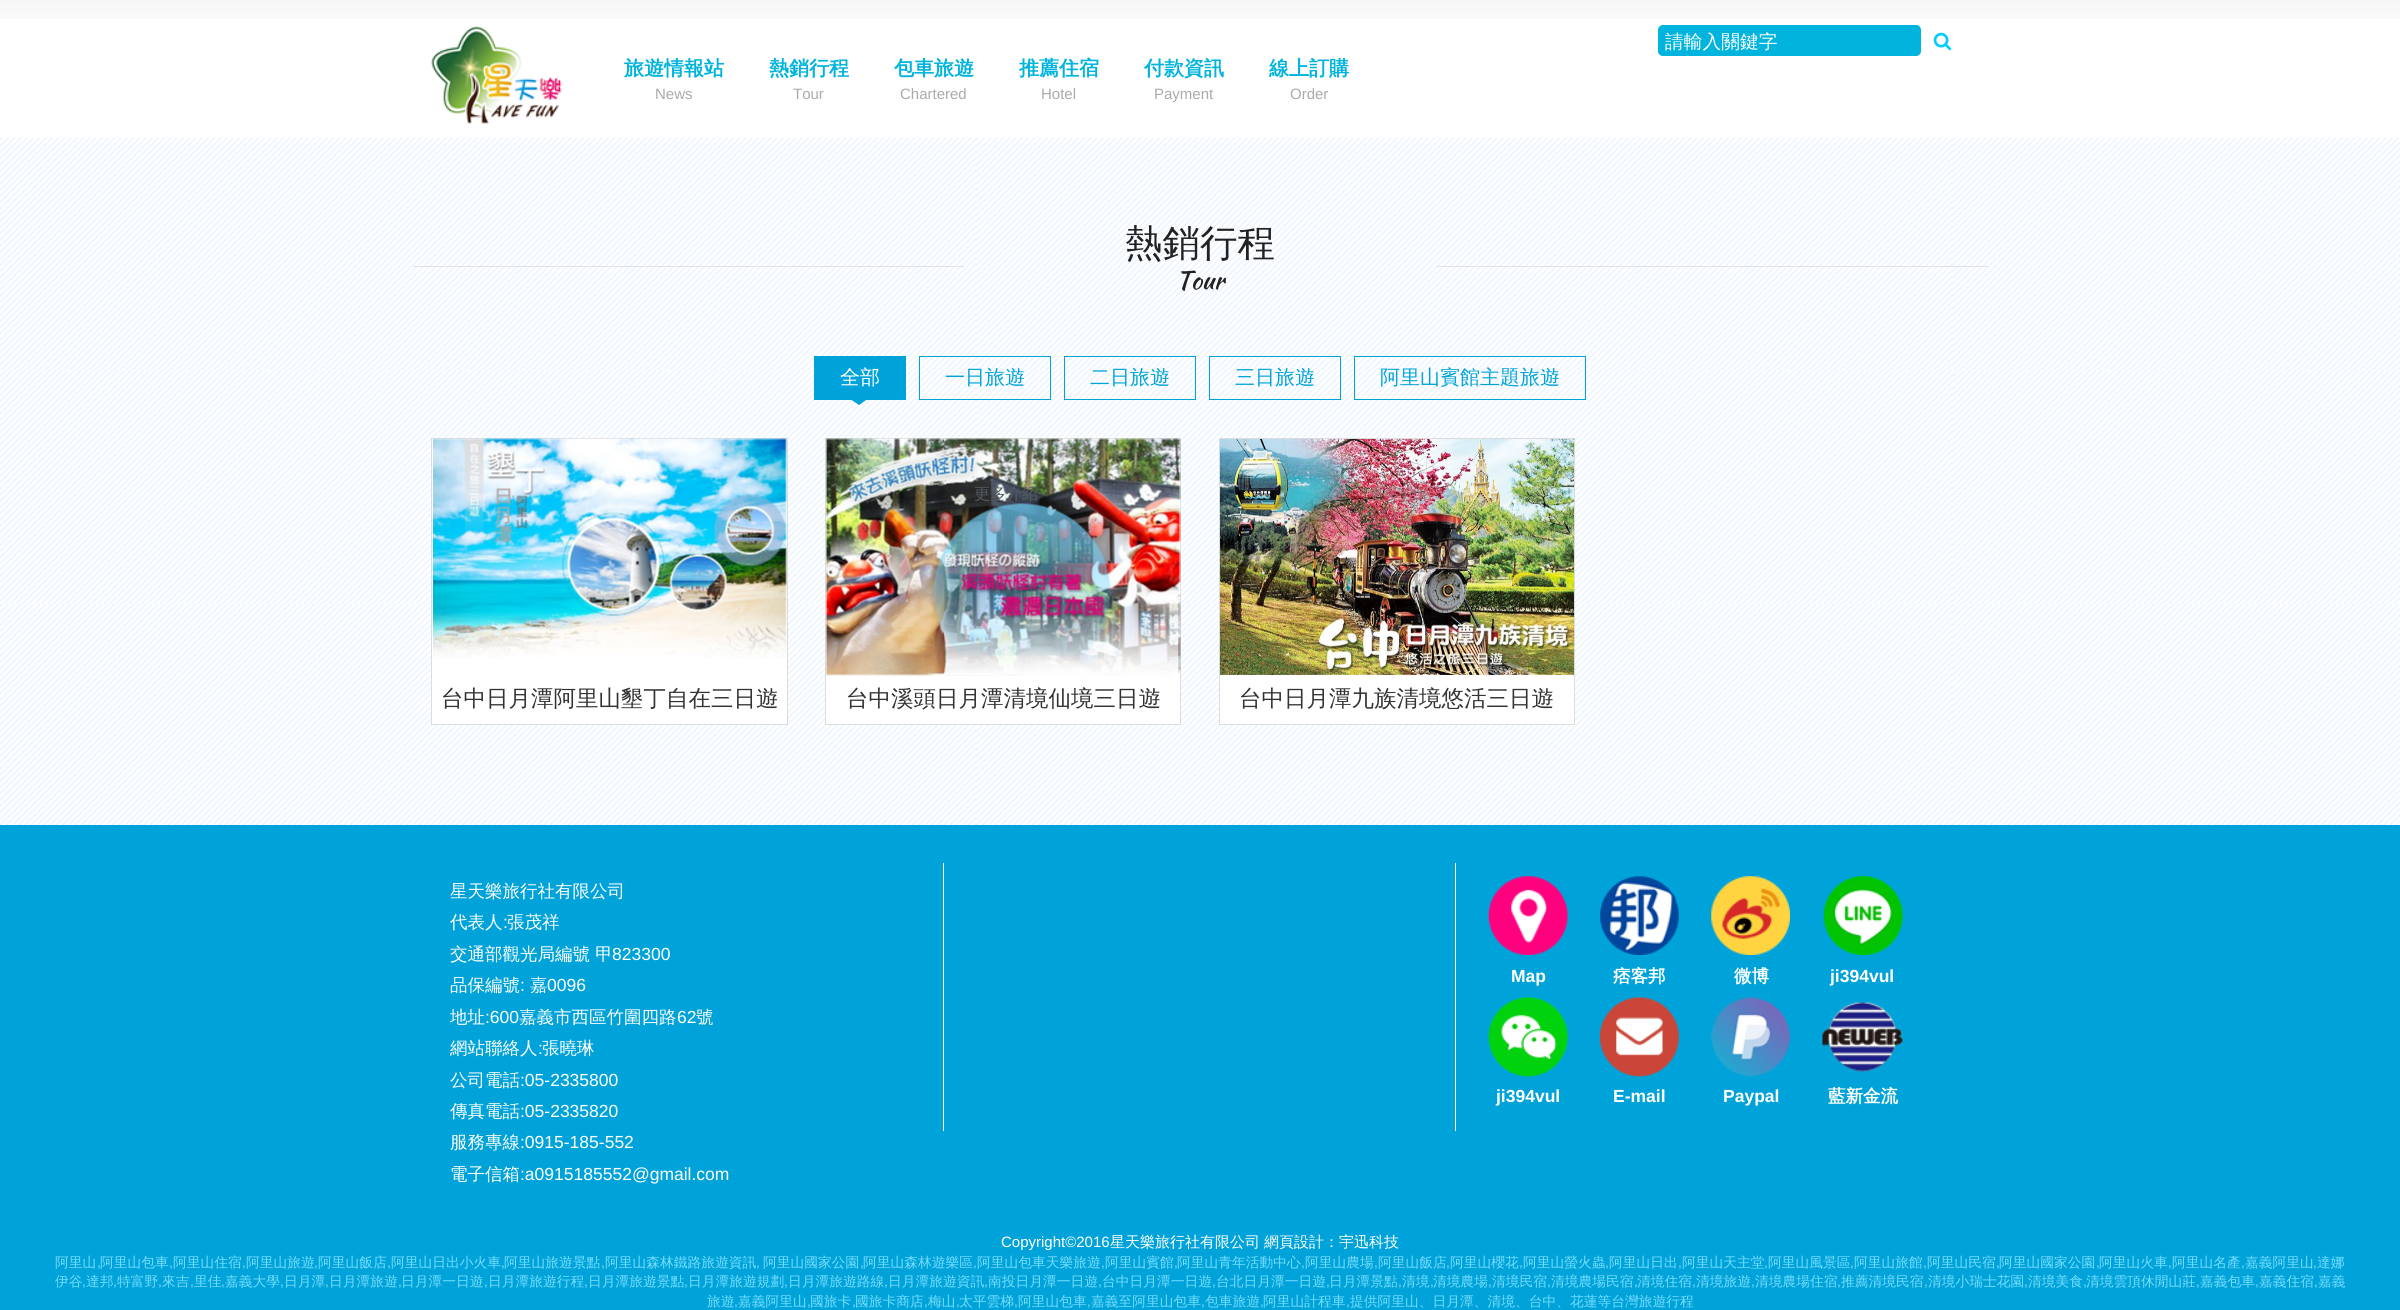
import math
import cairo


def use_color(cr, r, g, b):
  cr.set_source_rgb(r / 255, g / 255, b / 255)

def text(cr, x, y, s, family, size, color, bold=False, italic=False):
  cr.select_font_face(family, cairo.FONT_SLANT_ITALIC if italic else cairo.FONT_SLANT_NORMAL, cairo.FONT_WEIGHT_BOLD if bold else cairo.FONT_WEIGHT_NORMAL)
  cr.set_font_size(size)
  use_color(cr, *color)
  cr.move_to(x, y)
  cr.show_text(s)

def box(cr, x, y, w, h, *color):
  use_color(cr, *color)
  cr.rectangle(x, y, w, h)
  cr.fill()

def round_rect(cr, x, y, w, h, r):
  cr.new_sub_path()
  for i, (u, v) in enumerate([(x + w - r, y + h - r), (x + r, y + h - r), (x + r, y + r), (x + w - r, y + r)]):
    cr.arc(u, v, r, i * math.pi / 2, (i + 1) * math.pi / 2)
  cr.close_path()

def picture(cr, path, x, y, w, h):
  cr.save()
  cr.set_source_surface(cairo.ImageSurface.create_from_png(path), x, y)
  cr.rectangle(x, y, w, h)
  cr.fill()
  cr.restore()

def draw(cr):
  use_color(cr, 255, 255, 255)
  cr.paint()
  picture(cr, "img_01.png", 0, 0, 2400, 19)
  picture(cr, "img_02.png", 431, 26, 131, 98)
  use_color(cr, 0, 180, 221)
  round_rect(cr, 1658.5, 25.5, 262, 30, 4.5)
  cr.fill_preserve()
  cr.set_line_width(1)
  cr.stroke()
  picture(cr, "img_03.png", 1933, 32, 19, 19)
  picture(cr, "img_04.png", 0, 137, 2400, 688)
  box(cr, 413, 266, 551, 1, 226, 226, 226)
  box(cr, 1436, 266, 552, 1, 226, 226, 226)
  box(cr, 814, 356, 92, 44, 0, 163, 217)
  cr.new_path()
  cr.move_to(850, 399)
  cr.line_to(867.5, 399)
  cr.line_to(859, 405)
  cr.close_path()
  cr.fill()
  cr.rectangle(919.5, 356.5, 131, 43)
  cr.stroke()
  cr.rectangle(1064.5, 356.5, 131, 43)
  cr.stroke()
  cr.rectangle(1209.5, 356.5, 131, 43)
  cr.stroke()
  cr.rectangle(1354.5, 356.5, 231, 43)
  cr.stroke()
  use_color(cr, 255, 255, 255)
  cr.rectangle(431.5, 438.5, 356, 286)
  cr.fill_preserve()
  use_color(cr, 220, 220, 220)
  cr.stroke()
  picture(cr, "img_05.png", 433, 438, 354, 220)
  use_color(cr, 255, 255, 255)
  cr.rectangle(825.5, 438.5, 355, 286)
  cr.fill_preserve()
  use_color(cr, 220, 220, 220)
  cr.stroke()
  picture(cr, "img_06.png", 825, 438, 356, 238)
  use_color(cr, 255, 255, 255)
  cr.rectangle(1219.5, 438.5, 355, 286)
  cr.fill_preserve()
  use_color(cr, 220, 220, 220)
  cr.stroke()
  picture(cr, "img_07.png", 1220, 439, 354, 236)
  box(cr, 0, 825, 2400, 485, 0, 163, 217)
  box(cr, 943, 863, 1, 268, 255, 255, 255)
  box(cr, 1455, 863, 1, 268, 255, 255, 255)
  picture(cr, "img_08.png", 1488, 876, 80, 79)
  picture(cr, "img_09.png", 1600, 876, 79, 79)
  picture(cr, "img_10.png", 1711, 876, 79, 79)
  picture(cr, "img_11.png", 1823, 876, 80, 79)
  picture(cr, "img_12.png", 1488, 997, 80, 80)
  picture(cr, "img_13.png", 1600, 997, 79, 80)
  picture(cr, "img_14.png", 1711, 997, 79, 80)
  picture(cr, "img_15.png", 1822, 1002, 81, 70)
  text(cr, 1665, 48, "請輸入關鍵字", "WenQuanYi Zen Hei Medium", 18.75, (255, 255, 255))
  text(cr, 624, 75, "旅遊情報站", "WenQuanYi Zen Hei", 20, (0, 180, 221), bold=True)
  text(cr, 655, 99, "News", "Liberation Sans", 15, (170, 170, 170))
  text(cr, 769, 75, "熱銷行程", "WenQuanYi Zen Hei", 20, (0, 180, 221), bold=True)
  text(cr, 793, 99, "Tour", "Liberation Sans", 15, (170, 170, 170))
  text(cr, 894, 75, "包車旅遊", "WenQuanYi Zen Hei", 20, (0, 180, 221), bold=True)
  text(cr, 900, 99, "Chartered", "Liberation Sans", 15, (170, 170, 170))
  text(cr, 1019, 75, "推薦住宿", "WenQuanYi Zen Hei", 20, (0, 180, 221), bold=True)
  text(cr, 1041, 99, "Hotel", "Liberation Sans", 15, (170, 170, 170))
  text(cr, 1144, 75, "付款資訊", "WenQuanYi Zen Hei", 20, (0, 180, 221), bold=True)
  text(cr, 1154, 99, "Payment", "Liberation Sans", 15, (170, 170, 170))
  text(cr, 1269, 75, "線上訂購", "WenQuanYi Zen Hei", 20, (0, 180, 221), bold=True)
  text(cr, 1290, 99, "Order", "Liberation Sans", 15, (170, 170, 170))
  text(cr, 1125, 256, "熱銷行程", "WenQuanYi Zen Hei Medium", 37.5, (34, 34, 34))
  text(cr, 1176, 289, "Tour", "Kaushan Script", 25, (34, 34, 34))
  text(cr, 840, 384, "全部", "WenQuanYi Zen Hei Medium", 20, (255, 255, 255))
  text(cr, 945, 384, "一日旅遊", "WenQuanYi Zen Hei Medium", 20, (0, 163, 217))
  text(cr, 1090, 384, "二日旅遊", "WenQuanYi Zen Hei Medium", 20, (0, 163, 217))
  text(cr, 1235, 384, "三日旅遊", "WenQuanYi Zen Hei Medium", 20, (0, 163, 217))
  text(cr, 1380, 384, "阿里山賓館主題旅遊", "WenQuanYi Zen Hei Medium", 20, (0, 163, 217))
  text(cr, 441, 706, "台中日月潭阿里山墾丁自在三日遊", "WenQuanYi Zen Hei Medium", 22.5, (51, 51, 51))
  text(cr, 974, 499, "更多介紹", "WenQuanYi Zen Hei Medium", 16, (84, 91, 94))
  text(cr, 846, 706, "台中溪頭日月潭清境仙境三日遊", "WenQuanYi Zen Hei Medium", 22.5, (51, 51, 51))
  text(cr, 1368, 499, "更多介紹", "WenQuanYi Zen Hei Medium", 16, (182, 106, 119))
  text(cr, 1239, 706, "台中日月潭九族清境悠活三日遊", "WenQuanYi Zen Hei Medium", 22.5, (51, 51, 51))
  text(cr, 450, 897, "星天樂旅行社有限公司", "WenQuanYi Zen Hei Medium", 17.5, (255, 255, 255))
  text(cr, 450, 928, "代表人", "WenQuanYi Zen Hei Medium", 17.5, (255, 255, 255))
  text(cr, 503, 928, ":", "Liberation Sans", 17.5, (255, 255, 255))
  text(cr, 507, 928, "張茂祥", "WenQuanYi Zen Hei Medium", 17.5, (255, 255, 255))
  text(cr, 450, 960, "交通部觀光局編號 甲", "WenQuanYi Zen Hei Medium", 17.5, (255, 255, 255))
  text(cr, 612, 960, "823300", "Liberation Sans", 17.5, (255, 255, 255))
  text(cr, 450, 991, "品保編號", "WenQuanYi Zen Hei Medium", 17.5, (255, 255, 255))
  text(cr, 520, 991, ":", "Liberation Sans", 17.5, (255, 255, 255))
  text(cr, 530, 991, "嘉", "WenQuanYi Zen Hei Medium", 17.5, (255, 255, 255))
  text(cr, 547, 991, "0096", "Liberation Sans", 17.5, (255, 255, 255))
  text(cr, 450, 1023, "地址", "WenQuanYi Zen Hei Medium", 17.5, (255, 255, 255))
  text(cr, 485, 1023, ":600", "Liberation Sans", 17.5, (255, 255, 255))
  text(cr, 519, 1023, "嘉義市西區竹圍四路", "WenQuanYi Zen Hei Medium", 17.5, (255, 255, 255))
  text(cr, 677, 1023, "62", "Liberation Sans", 17.5, (255, 255, 255))
  text(cr, 696, 1023, "號", "WenQuanYi Zen Hei Medium", 17.5, (255, 255, 255))
  text(cr, 450, 1054, "網站聯絡人", "WenQuanYi Zen Hei Medium", 17.5, (255, 255, 255))
  text(cr, 538, 1054, ":", "Liberation Sans", 17.5, (255, 255, 255))
  text(cr, 542, 1054, "張曉琳", "WenQuanYi Zen Hei Medium", 17.5, (255, 255, 255))
  text(cr, 450, 1086, "公司電話", "WenQuanYi Zen Hei Medium", 17.5, (255, 255, 255))
  text(cr, 520, 1086, ":05-2335800", "Liberation Sans", 17.5, (255, 255, 255))
  text(cr, 450, 1117, "傳真電話", "WenQuanYi Zen Hei Medium", 17.5, (255, 255, 255))
  text(cr, 520, 1117, ":05-2335820", "Liberation Sans", 17.5, (255, 255, 255))
  text(cr, 450, 1148, "服務專線", "WenQuanYi Zen Hei Medium", 17.5, (255, 255, 255))
  text(cr, 520, 1148, ":0915-185-552", "Liberation Sans", 17.5, (255, 255, 255))
  text(cr, 450, 1180, "電子信箱", "WenQuanYi Zen Hei Medium", 17.5, (255, 255, 255))
  text(cr, 520, 1180, ":a0915185552@gmail.com", "Liberation Sans", 17.5, (255, 255, 255))
  text(cr, 1511, 982, "Map", "Liberation Sans", 17.5, (255, 255, 255), bold=True)
  text(cr, 1613, 982, "痞客邦", "WenQuanYi Zen Hei", 17.5, (255, 255, 255), bold=True)
  text(cr, 1734, 982, "微博", "WenQuanYi Zen Hei", 17.5, (255, 255, 255), bold=True)
  text(cr, 1830, 982, "ji394vul", "Liberation Sans", 17.5, (255, 255, 255), bold=True)
  text(cr, 1496, 1102, "ji394vul", "Liberation Sans", 17.5, (255, 255, 255), bold=True)
  text(cr, 1613, 1102, "E-mail", "Liberation Sans", 17.5, (255, 255, 255), bold=True)
  text(cr, 1723, 1102, "Paypal", "Liberation Sans", 17.5, (255, 255, 255), bold=True)
  text(cr, 1828, 1102, "藍新金流", "WenQuanYi Zen Hei", 17.5, (255, 255, 255), bold=True)
  text(cr, 1001, 1247, "Copyright©2016", "Liberation Sans", 15, (255, 255, 255))
  text(cr, 1110, 1247, "星天樂旅行社有限公司", "WenQuanYi Zen Hei Medium", 15, (255, 255, 255))
  text(cr, 1264, 1247, "網頁設計：宇迅科技", "WenQuanYi Zen Hei Medium", 15, (255, 255, 255))
  text(cr, 55, 1267, "阿里山", "WenQuanYi Zen Hei Medium", 13.75, (117, 221, 255))
  text(cr, 97, 1267, ",", "Liberation Sans", 13.75, (117, 221, 255))
  text(cr, 100, 1267, "阿里山包車", "WenQuanYi Zen Hei Medium", 13.75, (117, 221, 255))
  text(cr, 169, 1267, ",", "Liberation Sans", 13.75, (117, 221, 255))
  text(cr, 173, 1267, "阿里山住宿", "WenQuanYi Zen Hei Medium", 13.75, (117, 221, 255))
  text(cr, 242, 1267, ",", "Liberation Sans", 13.75, (117, 221, 255))
  text(cr, 246, 1267, "阿里山旅遊", "WenQuanYi Zen Hei Medium", 13.75, (117, 221, 255))
  text(cr, 314, 1267, ",", "Liberation Sans", 13.75, (117, 221, 255))
  text(cr, 318, 1267, "阿里山飯店", "WenQuanYi Zen Hei Medium", 13.75, (117, 221, 255))
  text(cr, 387, 1267, ",", "Liberation Sans", 13.75, (117, 221, 255))
  text(cr, 391, 1267, "阿里山日出小火車", "WenQuanYi Zen Hei Medium", 13.75, (117, 221, 255))
  text(cr, 501, 1267, ",", "Liberation Sans", 13.75, (117, 221, 255))
  text(cr, 504, 1267, "阿里山旅遊景點", "WenQuanYi Zen Hei Medium", 13.75, (117, 221, 255))
  text(cr, 601, 1267, ",", "Liberation Sans", 13.75, (117, 221, 255))
  text(cr, 605, 1267, "阿里山森林鐵路旅遊資訊", "WenQuanYi Zen Hei Medium", 13.75, (117, 221, 255))
  text(cr, 756, 1267, ",", "Liberation Sans", 13.75, (117, 221, 255))
  text(cr, 763, 1267, "阿里山國家公園", "WenQuanYi Zen Hei Medium", 13.75, (117, 221, 255))
  text(cr, 860, 1267, ",", "Liberation Sans", 13.75, (117, 221, 255))
  text(cr, 863, 1267, "阿里山森林遊樂區", "WenQuanYi Zen Hei Medium", 13.75, (117, 221, 255))
  text(cr, 973, 1267, ",", "Liberation Sans", 13.75, (117, 221, 255))
  text(cr, 977, 1267, "阿里山包車天樂旅遊", "WenQuanYi Zen Hei Medium", 13.75, (117, 221, 255))
  text(cr, 1101, 1267, ",", "Liberation Sans", 13.75, (117, 221, 255))
  text(cr, 1105, 1267, "阿里山賓館", "WenQuanYi Zen Hei Medium", 13.75, (117, 221, 255))
  text(cr, 1174, 1267, ",", "Liberation Sans", 13.75, (117, 221, 255))
  text(cr, 1177, 1267, "阿里山青年活動中心", "WenQuanYi Zen Hei Medium", 13.75, (117, 221, 255))
  text(cr, 1301, 1267, ",", "Liberation Sans", 13.75, (117, 221, 255))
  text(cr, 1305, 1267, "阿里山農場", "WenQuanYi Zen Hei Medium", 13.75, (117, 221, 255))
  text(cr, 1374, 1267, ",", "Liberation Sans", 13.75, (117, 221, 255))
  text(cr, 1378, 1267, "阿里山飯店", "WenQuanYi Zen Hei Medium", 13.75, (117, 221, 255))
  text(cr, 1446, 1267, ",", "Liberation Sans", 13.75, (117, 221, 255))
  text(cr, 1450, 1267, "阿里山櫻花", "WenQuanYi Zen Hei Medium", 13.75, (117, 221, 255))
  text(cr, 1519, 1267, ",", "Liberation Sans", 13.75, (117, 221, 255))
  text(cr, 1523, 1267, "阿里山螢火蟲", "WenQuanYi Zen Hei Medium", 13.75, (117, 221, 255))
  text(cr, 1605, 1267, ",", "Liberation Sans", 13.75, (117, 221, 255))
  text(cr, 1609, 1267, "阿里山日出", "WenQuanYi Zen Hei Medium", 13.75, (117, 221, 255))
  text(cr, 1678, 1267, ",", "Liberation Sans", 13.75, (117, 221, 255))
  text(cr, 1682, 1267, "阿里山天主堂", "WenQuanYi Zen Hei Medium", 13.75, (117, 221, 255))
  text(cr, 1764, 1267, ",", "Liberation Sans", 13.75, (117, 221, 255))
  text(cr, 1768, 1267, "阿里山風景區", "WenQuanYi Zen Hei Medium", 13.75, (117, 221, 255))
  text(cr, 1850, 1267, ",", "Liberation Sans", 13.75, (117, 221, 255))
  text(cr, 1854, 1267, "阿里山旅館", "WenQuanYi Zen Hei Medium", 13.75, (117, 221, 255))
  text(cr, 1923, 1267, ",", "Liberation Sans", 13.75, (117, 221, 255))
  text(cr, 1927, 1267, "阿里山民宿", "WenQuanYi Zen Hei Medium", 13.75, (117, 221, 255))
  text(cr, 1996, 1267, ",", "Liberation Sans", 13.75, (117, 221, 255))
  text(cr, 1999, 1267, "阿里山國家公園", "WenQuanYi Zen Hei Medium", 13.75, (117, 221, 255))
  text(cr, 2096, 1267, ",", "Liberation Sans", 13.75, (117, 221, 255))
  text(cr, 2099, 1267, "阿里山火車", "WenQuanYi Zen Hei Medium", 13.75, (117, 221, 255))
  text(cr, 2168, 1267, ",", "Liberation Sans", 13.75, (117, 221, 255))
  text(cr, 2172, 1267, "阿里山名產", "WenQuanYi Zen Hei Medium", 13.75, (117, 221, 255))
  text(cr, 2241, 1267, ",", "Liberation Sans", 13.75, (117, 221, 255))
  text(cr, 2245, 1267, "嘉義阿里山", "WenQuanYi Zen Hei Medium", 13.75, (117, 221, 255))
  text(cr, 2313, 1267, ",", "Liberation Sans", 13.75, (117, 221, 255))
  text(cr, 2317, 1267, "達娜", "WenQuanYi Zen Hei Medium", 13.75, (117, 221, 255))
  text(cr, 55, 1286, "伊谷", "WenQuanYi Zen Hei Medium", 13.75, (117, 221, 255))
  text(cr, 82, 1286, ",", "Liberation Sans", 13.75, (117, 221, 255))
  text(cr, 86, 1286, "達邦", "WenQuanYi Zen Hei Medium", 13.75, (117, 221, 255))
  text(cr, 113, 1286, ",", "Liberation Sans", 13.75, (117, 221, 255))
  text(cr, 117, 1286, "特富野", "WenQuanYi Zen Hei Medium", 13.75, (117, 221, 255))
  text(cr, 158, 1286, ",", "Liberation Sans", 13.75, (117, 221, 255))
  text(cr, 162, 1286, "來吉", "WenQuanYi Zen Hei Medium", 13.75, (117, 221, 255))
  text(cr, 190, 1286, ",", "Liberation Sans", 13.75, (117, 221, 255))
  text(cr, 194, 1286, "里佳", "WenQuanYi Zen Hei Medium", 13.75, (117, 221, 255))
  text(cr, 221, 1286, ",", "Liberation Sans", 13.75, (117, 221, 255))
  text(cr, 225, 1286, "嘉義大學", "WenQuanYi Zen Hei Medium", 13.75, (117, 221, 255))
  text(cr, 280, 1286, ",", "Liberation Sans", 13.75, (117, 221, 255))
  text(cr, 284, 1286, "日月潭", "WenQuanYi Zen Hei Medium", 13.75, (117, 221, 255))
  text(cr, 325, 1286, ",", "Liberation Sans", 13.75, (117, 221, 255))
  text(cr, 329, 1286, "日月潭旅遊", "WenQuanYi Zen Hei Medium", 13.75, (117, 221, 255))
  text(cr, 398, 1286, ",", "Liberation Sans", 13.75, (117, 221, 255))
  text(cr, 401, 1286, "日月潭一日遊", "WenQuanYi Zen Hei Medium", 13.75, (117, 221, 255))
  text(cr, 484, 1286, ",", "Liberation Sans", 13.75, (117, 221, 255))
  text(cr, 488, 1286, "日月潭旅遊行程", "WenQuanYi Zen Hei Medium", 13.75, (117, 221, 255))
  text(cr, 584, 1286, ",", "Liberation Sans", 13.75, (117, 221, 255))
  text(cr, 588, 1286, "日月潭旅遊景點", "WenQuanYi Zen Hei Medium", 13.75, (117, 221, 255))
  text(cr, 684, 1286, ",", "Liberation Sans", 13.75, (117, 221, 255))
  text(cr, 688, 1286, "日月潭旅遊規劃", "WenQuanYi Zen Hei Medium", 13.75, (117, 221, 255))
  text(cr, 784, 1286, ",", "Liberation Sans", 13.75, (117, 221, 255))
  text(cr, 788, 1286, "日月潭旅遊路線", "WenQuanYi Zen Hei Medium", 13.75, (117, 221, 255))
  text(cr, 884, 1286, ",", "Liberation Sans", 13.75, (117, 221, 255))
  text(cr, 888, 1286, "日月潭旅遊資訊", "WenQuanYi Zen Hei Medium", 13.75, (117, 221, 255))
  text(cr, 984, 1286, ",", "Liberation Sans", 13.75, (117, 221, 255))
  text(cr, 988, 1286, "南投日月潭一日遊", "WenQuanYi Zen Hei Medium", 13.75, (117, 221, 255))
  text(cr, 1098, 1286, ",", "Liberation Sans", 13.75, (117, 221, 255))
  text(cr, 1102, 1286, "台中日月潭一日遊", "WenQuanYi Zen Hei Medium", 13.75, (117, 221, 255))
  text(cr, 1212, 1286, ",", "Liberation Sans", 13.75, (117, 221, 255))
  text(cr, 1216, 1286, "台北日月潭一日遊", "WenQuanYi Zen Hei Medium", 13.75, (117, 221, 255))
  text(cr, 1326, 1286, ",", "Liberation Sans", 13.75, (117, 221, 255))
  text(cr, 1329, 1286, "日月潭景點", "WenQuanYi Zen Hei Medium", 13.75, (117, 221, 255))
  text(cr, 1398, 1286, ",", "Liberation Sans", 13.75, (117, 221, 255))
  text(cr, 1402, 1286, "清境", "WenQuanYi Zen Hei Medium", 13.75, (117, 221, 255))
  text(cr, 1430, 1286, ",", "Liberation Sans", 13.75, (117, 221, 255))
  text(cr, 1433, 1286, "清境農場", "WenQuanYi Zen Hei Medium", 13.75, (117, 221, 255))
  text(cr, 1488, 1286, ",", "Liberation Sans", 13.75, (117, 221, 255))
  text(cr, 1492, 1286, "清境民宿", "WenQuanYi Zen Hei Medium", 13.75, (117, 221, 255))
  text(cr, 1547, 1286, ",", "Liberation Sans", 13.75, (117, 221, 255))
  text(cr, 1551, 1286, "清境農場民宿", "WenQuanYi Zen Hei Medium", 13.75, (117, 221, 255))
  text(cr, 1634, 1286, ",", "Liberation Sans", 13.75, (117, 221, 255))
  text(cr, 1637, 1286, "清境住宿", "WenQuanYi Zen Hei Medium", 13.75, (117, 221, 255))
  text(cr, 1692, 1286, ",", "Liberation Sans", 13.75, (117, 221, 255))
  text(cr, 1696, 1286, "清境旅遊", "WenQuanYi Zen Hei Medium", 13.75, (117, 221, 255))
  text(cr, 1751, 1286, ",", "Liberation Sans", 13.75, (117, 221, 255))
  text(cr, 1755, 1286, "清境農場住宿", "WenQuanYi Zen Hei Medium", 13.75, (117, 221, 255))
  text(cr, 1837, 1286, ",", "Liberation Sans", 13.75, (117, 221, 255))
  text(cr, 1841, 1286, "推薦清境民宿", "WenQuanYi Zen Hei Medium", 13.75, (117, 221, 255))
  text(cr, 1924, 1286, ",", "Liberation Sans", 13.75, (117, 221, 255))
  text(cr, 1928, 1286, "清境小瑞士花園", "WenQuanYi Zen Hei Medium", 13.75, (117, 221, 255))
  text(cr, 2024, 1286, ",", "Liberation Sans", 13.75, (117, 221, 255))
  text(cr, 2028, 1286, "清境美食", "WenQuanYi Zen Hei Medium", 13.75, (117, 221, 255))
  text(cr, 2083, 1286, ",", "Liberation Sans", 13.75, (117, 221, 255))
  text(cr, 2086, 1286, "清境雲頂休閒山莊", "WenQuanYi Zen Hei Medium", 13.75, (117, 221, 255))
  text(cr, 2196, 1286, ",", "Liberation Sans", 13.75, (117, 221, 255))
  text(cr, 2200, 1286, "嘉義包車", "WenQuanYi Zen Hei Medium", 13.75, (117, 221, 255))
  text(cr, 2255, 1286, ",", "Liberation Sans", 13.75, (117, 221, 255))
  text(cr, 2259, 1286, "嘉義住宿", "WenQuanYi Zen Hei Medium", 13.75, (117, 221, 255))
  text(cr, 2314, 1286, ",", "Liberation Sans", 13.75, (117, 221, 255))
  text(cr, 2318, 1286, "嘉義", "WenQuanYi Zen Hei Medium", 13.75, (117, 221, 255))
  text(cr, 707, 1306, "旅遊", "WenQuanYi Zen Hei Medium", 13.75, (117, 221, 255))
  text(cr, 734, 1306, ",", "Liberation Sans", 13.75, (117, 221, 255))
  text(cr, 738, 1306, "嘉義阿里山", "WenQuanYi Zen Hei Medium", 13.75, (117, 221, 255))
  text(cr, 807, 1306, ",", "Liberation Sans", 13.75, (117, 221, 255))
  text(cr, 810, 1306, "國旅卡", "WenQuanYi Zen Hei Medium", 13.75, (117, 221, 255))
  text(cr, 852, 1306, ",", "Liberation Sans", 13.75, (117, 221, 255))
  text(cr, 855, 1306, "國旅卡商店", "WenQuanYi Zen Hei Medium", 13.75, (117, 221, 255))
  text(cr, 924, 1306, ",", "Liberation Sans", 13.75, (117, 221, 255))
  text(cr, 928, 1306, "梅山", "WenQuanYi Zen Hei Medium", 13.75, (117, 221, 255))
  text(cr, 956, 1306, ",", "Liberation Sans", 13.75, (117, 221, 255))
  text(cr, 959, 1306, "太平雲梯", "WenQuanYi Zen Hei Medium", 13.75, (117, 221, 255))
  text(cr, 1014, 1306, ",", "Liberation Sans", 13.75, (117, 221, 255))
  text(cr, 1018, 1306, "阿里山包車", "WenQuanYi Zen Hei Medium", 13.75, (117, 221, 255))
  text(cr, 1087, 1306, ",", "Liberation Sans", 13.75, (117, 221, 255))
  text(cr, 1091, 1306, "嘉義至阿里山包車", "WenQuanYi Zen Hei Medium", 13.75, (117, 221, 255))
  text(cr, 1201, 1306, ",", "Liberation Sans", 13.75, (117, 221, 255))
  text(cr, 1205, 1306, "包車旅遊", "WenQuanYi Zen Hei Medium", 13.75, (117, 221, 255))
  text(cr, 1260, 1306, ",", "Liberation Sans", 13.75, (117, 221, 255))
  text(cr, 1263, 1306, "阿里山計程車", "WenQuanYi Zen Hei Medium", 13.75, (117, 221, 255))
  text(cr, 1346, 1306, ",", "Liberation Sans", 13.75, (117, 221, 255))
  text(cr, 1350, 1306, "提供阿里山、日月潭、清境、台中、花蓮等台灣旅遊行程", "WenQuanYi Zen Hei Medium", 13.75, (117, 221, 255))


surface = cairo.ImageSurface(cairo.FORMAT_RGB24, 2400, 1310)
cr = cairo.Context(surface)
options = cairo.FontOptions()
options.set_hint_metrics(cairo.HINT_METRICS_OFF)
options.set_hint_style(cairo.HINT_STYLE_NONE)
cr.set_font_options(options)
cr.set_miter_limit(4)
draw(cr)
surface.write_to_png("out.png")
